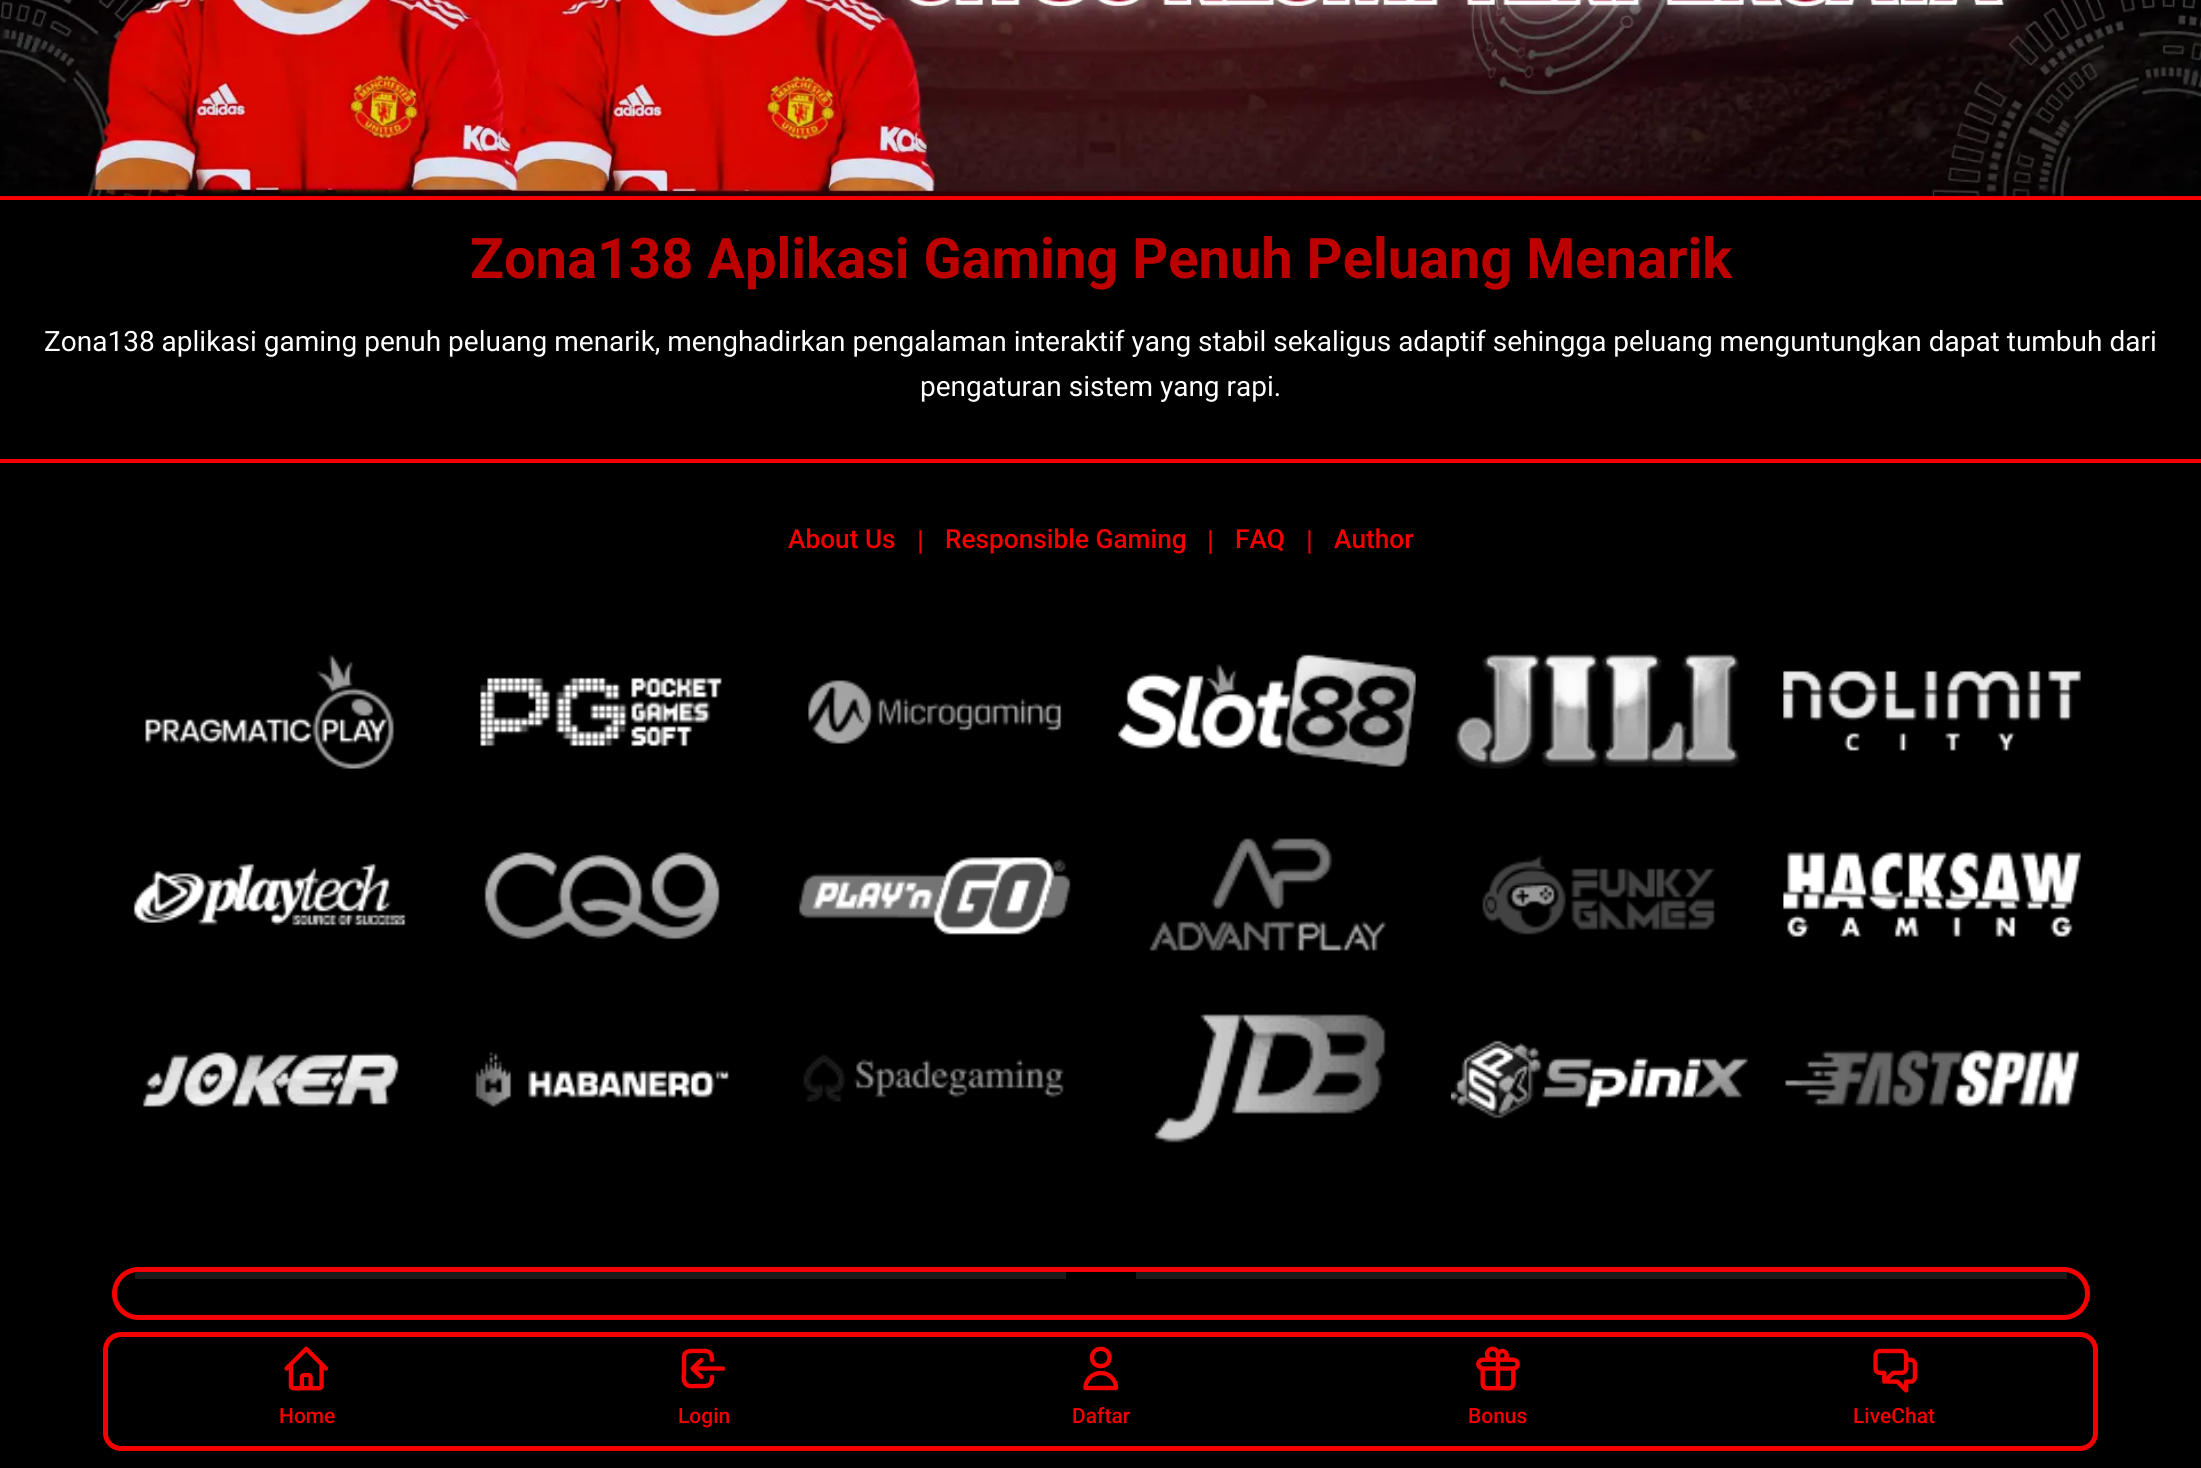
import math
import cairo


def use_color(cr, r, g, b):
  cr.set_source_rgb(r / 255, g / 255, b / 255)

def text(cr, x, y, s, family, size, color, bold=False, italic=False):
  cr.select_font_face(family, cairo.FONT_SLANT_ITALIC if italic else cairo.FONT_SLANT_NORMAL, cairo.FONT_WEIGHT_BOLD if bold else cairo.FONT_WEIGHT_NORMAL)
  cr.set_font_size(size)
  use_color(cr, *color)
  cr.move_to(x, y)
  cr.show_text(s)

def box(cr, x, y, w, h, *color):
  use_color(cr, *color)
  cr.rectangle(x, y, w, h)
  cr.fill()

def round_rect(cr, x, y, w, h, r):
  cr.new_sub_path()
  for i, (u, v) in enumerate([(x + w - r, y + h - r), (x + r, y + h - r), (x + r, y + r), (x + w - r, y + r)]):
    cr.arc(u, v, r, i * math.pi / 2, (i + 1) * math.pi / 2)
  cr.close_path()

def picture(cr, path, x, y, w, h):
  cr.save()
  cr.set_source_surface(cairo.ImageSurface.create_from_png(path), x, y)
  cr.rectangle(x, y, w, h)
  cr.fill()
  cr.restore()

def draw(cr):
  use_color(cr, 0, 0, 0)
  cr.paint()
  box(cr, 0, 196, 2201, 4, 252, 0, 0)
  picture(cr, "img_01.png", 0, 0, 2201, 197)
  box(cr, 0, 459, 2201, 4, 244, 0, 0)
  picture(cr, "img_02.png", 145, 654, 249, 115)
  picture(cr, "img_03.png", 133, 863, 273, 63)
  picture(cr, "img_04.png", 143, 1052, 256, 55)
  picture(cr, "img_05.png", 480, 677, 242, 70)
  picture(cr, "img_06.png", 484, 852, 236, 88)
  picture(cr, "img_07.png", 475, 1052, 254, 55)
  picture(cr, "img_08.png", 808, 680, 254, 64)
  picture(cr, "img_09.png", 797, 857, 274, 78)
  picture(cr, "img_10.png", 803, 1054, 261, 48)
  picture(cr, "img_11.png", 1118, 654, 298, 113)
  picture(cr, "img_12.png", 1149, 838, 238, 113)
  picture(cr, "img_13.png", 1154, 1014, 232, 129)
  picture(cr, "img_14.png", 1455, 653, 285, 116)
  picture(cr, "img_15.png", 1482, 855, 233, 80)
  picture(cr, "img_16.png", 1450, 1040, 298, 79)
  picture(cr, "img_17.png", 1783, 670, 298, 81)
  picture(cr, "img_18.png", 1783, 852, 298, 85)
  picture(cr, "img_19.png", 1785, 1050, 295, 57)
  round_rect(cr, 114.5, 1269.5, 1973, 48, 24)
  cr.set_line_width(5)
  cr.stroke()
  box(cr, 135, 1272, 931, 7, 26, 26, 26)
  box(cr, 1136, 1272, 931, 7, 26, 26, 26)
  round_rect(cr, 105.5, 1334.5, 1990, 114, 15.5)
  use_color(cr, 244, 0, 0)
  cr.stroke()
  picture(cr, "img_20.png", 284, 1346, 45, 45)
  cr.new_path()
  cr.move_to(701.5, 1377)
  cr.line_to(692.5, 1368.5)
  cr.move_to(692.5, 1368.5)
  cr.line_to(701.5, 1360)
  cr.move_to(692.5, 1368.5)
  cr.line_to(723, 1368.5)
  cr.move_to(712, 1377)
  cr.curve_to(712, 1387.5, 706, 1386, 698, 1386)
  cr.curve_to(693.5, 1386, 686.5, 1387.5, 684.5, 1382)
  cr.curve_to(683, 1379, 684, 1375, 684, 1372)
  cr.line_to(684, 1357.5)
  cr.curve_to(684, 1349.5, 692.5, 1351, 698, 1351)
  cr.curve_to(706, 1351, 712, 1349.5, 712, 1360)
  cr.set_line_width(4.4)
  cr.set_line_cap(cairo.LINE_CAP_ROUND)
  cr.set_line_join(cairo.LINE_JOIN_ROUND)
  cr.stroke()
  cr.new_path()
  cr.move_to(1109.5, 1357.5)
  cr.curve_to(1109.5, 1369, 1092, 1369, 1092, 1357.5)
  cr.curve_to(1092, 1346, 1109.5, 1346, 1109.5, 1357.5)
  cr.close_path()
  cr.move_to(1101, 1373)
  cr.curve_to(1092.5, 1373, 1085.5, 1379.5, 1085.5, 1388)
  cr.line_to(1116, 1388)
  cr.curve_to(1116, 1379.5, 1109, 1373, 1101, 1373)
  cr.close_path()
  cr.stroke()
  picture(cr, "img_21.png", 1476, 1346, 44, 45)
  picture(cr, "img_22.png", 1873, 1348, 45, 45)
  text(cr, 470, 278, "Zona138 Aplikasi Gaming Penuh Peluang Menarik", "Roboto", 56, (188, 0, 0), bold=True)
  text(cr, 44, 351, "Zona138 aplikasi gaming penuh peluang menarik, menghadirkan pengalaman interaktif yang stabil sekaligus adaptif sehingga peluang menguntungkan dapat tumbuh dari", "Roboto", 28, (255, 255, 255))
  text(cr, 920, 396, "pengaturan sistem yang rapi.", "Roboto", 28, (255, 255, 255))
  text(cr, 788, 548, "About Us", "Roboto Medium", 26.25, (244, 0, 0))
  text(cr, 917, 550, "|", "Roboto", 28, (244, 0, 0))
  text(cr, 945, 548, "Responsible Gaming", "Roboto Medium", 26.25, (244, 0, 0))
  text(cr, 1207, 550, "|", "Roboto", 28, (244, 0, 0))
  text(cr, 1235, 548, "FAQ", "Roboto Medium", 26.25, (244, 0, 0))
  text(cr, 1306, 550, "|", "Roboto", 28, (244, 0, 0))
  text(cr, 1334, 548, "Author", "Roboto Medium", 26.25, (244, 0, 0))
  text(cr, 279, 1423, "Home", "Roboto Medium", 21, (244, 0, 0))
  text(cr, 678, 1423, "Login", "Roboto Medium", 21, (244, 0, 0))
  text(cr, 1072, 1423, "Daftar", "Roboto Medium", 21, (244, 0, 0))
  text(cr, 1468, 1423, "Bonus", "Roboto Medium", 21, (244, 0, 0))
  text(cr, 1853, 1423, "LiveChat", "Roboto Medium", 21, (244, 0, 0))


surface = cairo.ImageSurface(cairo.FORMAT_RGB24, 2201, 1468)
cr = cairo.Context(surface)
options = cairo.FontOptions()
options.set_hint_metrics(cairo.HINT_METRICS_OFF)
options.set_hint_style(cairo.HINT_STYLE_NONE)
cr.set_font_options(options)
cr.set_miter_limit(4)
draw(cr)
surface.write_to_png("out.png")
